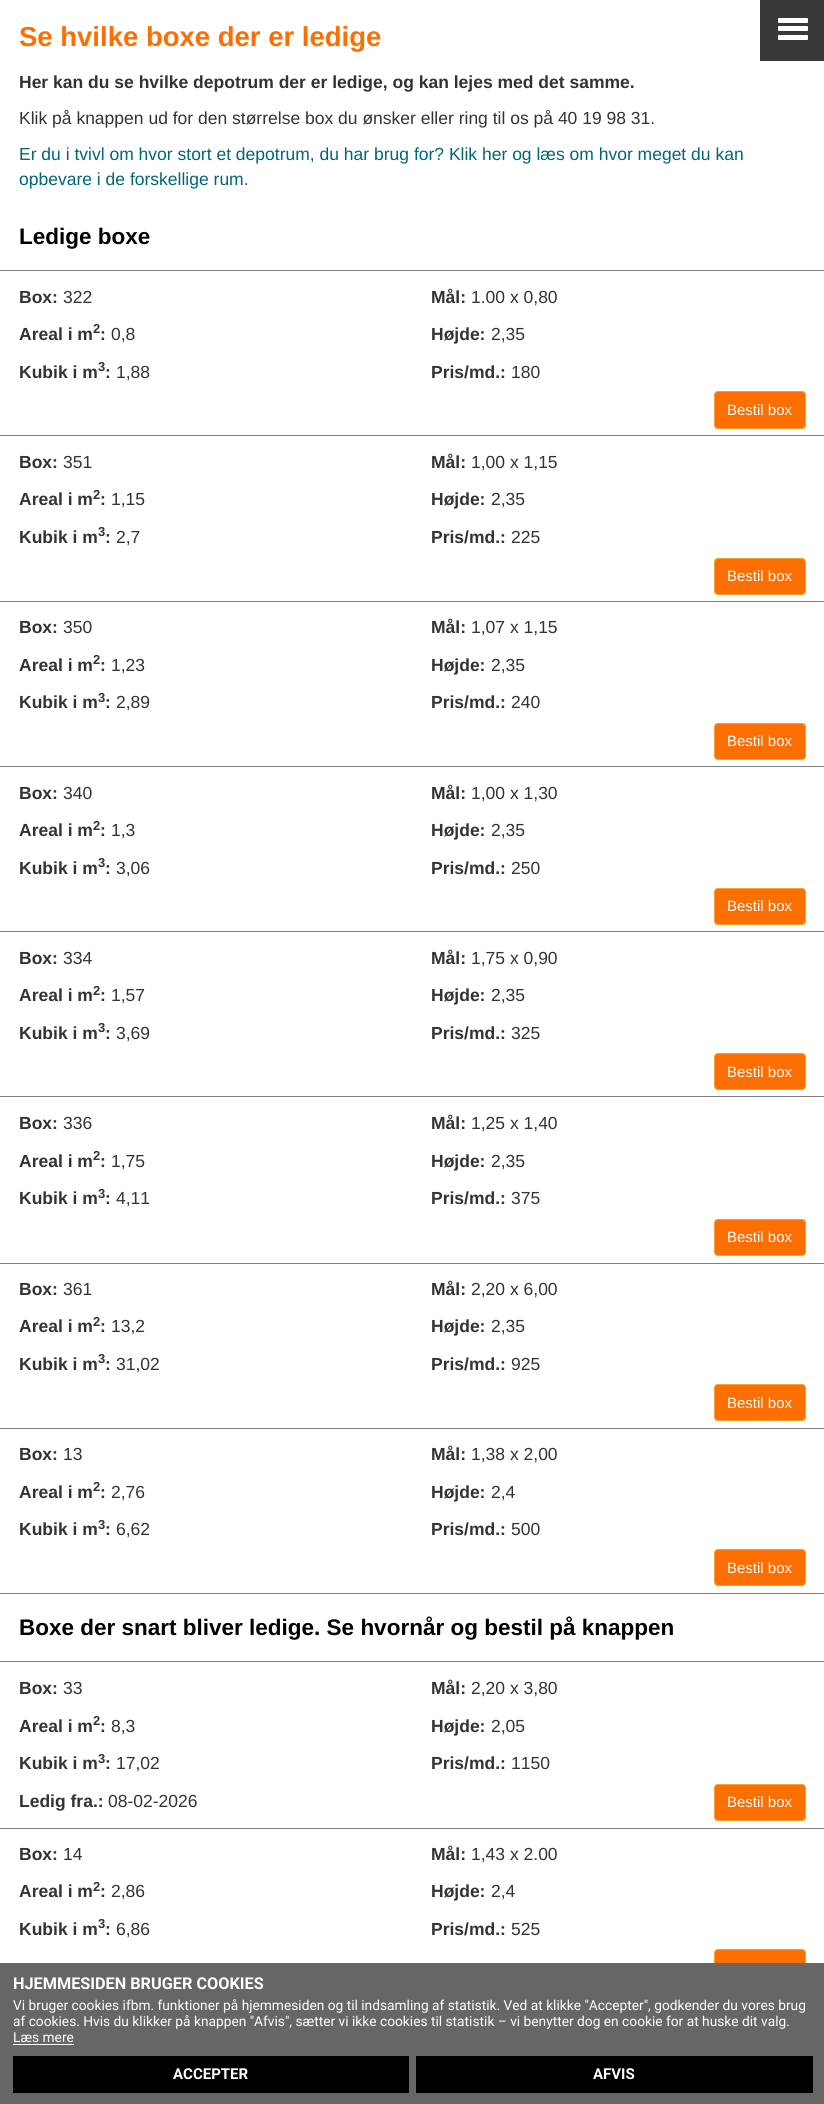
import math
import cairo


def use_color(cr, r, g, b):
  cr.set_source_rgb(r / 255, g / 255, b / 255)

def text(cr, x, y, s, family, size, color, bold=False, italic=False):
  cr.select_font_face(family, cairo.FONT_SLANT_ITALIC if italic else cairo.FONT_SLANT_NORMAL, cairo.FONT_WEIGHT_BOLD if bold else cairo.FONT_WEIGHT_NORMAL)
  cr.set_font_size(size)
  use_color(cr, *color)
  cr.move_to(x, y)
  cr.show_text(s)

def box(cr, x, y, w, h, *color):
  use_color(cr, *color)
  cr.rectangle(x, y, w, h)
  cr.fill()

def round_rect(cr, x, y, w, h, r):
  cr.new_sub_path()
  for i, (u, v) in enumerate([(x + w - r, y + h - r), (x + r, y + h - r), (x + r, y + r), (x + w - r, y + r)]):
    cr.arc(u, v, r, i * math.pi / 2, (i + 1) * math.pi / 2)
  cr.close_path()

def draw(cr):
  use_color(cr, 255, 255, 255)
  cr.paint()
  box(cr, 760, 0, 64, 61, 56, 56, 56)
  use_color(cr, 255, 255, 255)
  round_rect(cr, 778, 18, 30, 5, 1)
  cr.fill()
  round_rect(cr, 778, 26, 30, 5, 1)
  cr.fill()
  round_rect(cr, 778, 35, 30, 5, 1)
  cr.fill()
  box(cr, 0, 270, 824, 1, 128, 128, 128)
  box(cr, 0, 435, 824, 1, 128, 128, 128)
  use_color(cr, 255, 110, 0)
  round_rect(cr, 714.5, 391.5, 91, 37, 3.5)
  cr.fill_preserve()
  use_color(cr, 238, 162, 54)
  cr.set_line_width(1)
  cr.stroke()
  box(cr, 0, 601, 824, 1, 128, 128, 128)
  use_color(cr, 255, 110, 0)
  round_rect(cr, 714.5, 558.5, 91, 36, 3.5)
  cr.fill_preserve()
  use_color(cr, 238, 162, 54)
  cr.stroke()
  box(cr, 0, 766, 824, 1, 128, 128, 128)
  use_color(cr, 255, 110, 0)
  round_rect(cr, 714.5, 723.5, 91, 36, 3.5)
  cr.fill_preserve()
  use_color(cr, 238, 162, 54)
  cr.stroke()
  box(cr, 0, 931, 824, 1, 128, 128, 128)
  use_color(cr, 255, 110, 0)
  round_rect(cr, 714.5, 888.5, 91, 36, 3.5)
  cr.fill_preserve()
  use_color(cr, 238, 162, 54)
  cr.stroke()
  box(cr, 0, 1096, 824, 1, 128, 128, 128)
  use_color(cr, 255, 110, 0)
  round_rect(cr, 714.5, 1053.5, 91, 36, 3.5)
  cr.fill_preserve()
  use_color(cr, 238, 162, 54)
  cr.stroke()
  box(cr, 0, 1263, 824, 1, 128, 128, 128)
  use_color(cr, 255, 110, 0)
  round_rect(cr, 714.5, 1219.5, 91, 36, 3.5)
  cr.fill_preserve()
  use_color(cr, 238, 162, 54)
  cr.stroke()
  box(cr, 0, 1428, 824, 1, 128, 128, 128)
  use_color(cr, 255, 110, 0)
  round_rect(cr, 714.5, 1384.5, 91, 36, 3.5)
  cr.fill_preserve()
  use_color(cr, 238, 162, 54)
  cr.stroke()
  box(cr, 0, 1593, 824, 1, 128, 128, 128)
  use_color(cr, 255, 110, 0)
  round_rect(cr, 714.5, 1549.5, 91, 36, 3.5)
  cr.fill_preserve()
  use_color(cr, 238, 162, 54)
  cr.stroke()
  box(cr, 0, 1661, 824, 1, 128, 128, 128)
  box(cr, 0, 1828, 824, 1, 128, 128, 128)
  use_color(cr, 255, 110, 0)
  round_rect(cr, 714.5, 1784.5, 91, 36, 3.5)
  cr.fill_preserve()
  use_color(cr, 238, 162, 54)
  cr.stroke()
  use_color(cr, 255, 110, 0)
  round_rect(cr, 714.5, 1949.5, 91, 36, 3.5)
  cr.fill_preserve()
  use_color(cr, 238, 162, 54)
  cr.stroke()
  box(cr, 0, 1963, 824, 141, 102, 102, 102)
  box(cr, 13, 2044, 61, 1, 255, 255, 255)
  box(cr, 13, 2056, 396, 37, 0, 0, 0)
  box(cr, 416, 2056, 397, 37, 0, 0, 0)
  text(cr, 19, 46, "Se hvilke boxe der er ledige", "Liberation Sans", 27.5, (255, 110, 0), bold=True)
  text(cr, 19, 88, "Her kan du se hvilke depotrum der er ledige, og kan lejes med det samme.", "Liberation Sans", 17.5, (51, 51, 51), bold=True)
  text(cr, 19, 124, "Klik på knappen ud for den størrelse box du ønsker eller ring til os på 40 19 98 31.", "Liberation Sans", 17.5, (51, 51, 51))
  text(cr, 19, 160, "Er du i tvivl om hvor stort et depotrum, du har brug for? Klik her og læs om hvor meget du kan", "Liberation Sans", 17.5, (0, 102, 118))
  text(cr, 19, 185, "opbevare i de forskellige rum.", "Liberation Sans", 17.5, (0, 102, 118))
  text(cr, 19, 244, "Ledige boxe", "Liberation Sans", 22.5, (0, 0, 0), bold=True)
  text(cr, 19, 303, "Box:", "Liberation Sans", 17.5, (51, 51, 51), bold=True)
  text(cr, 63, 303, "322", "Liberation Sans", 17.5, (51, 51, 51))
  text(cr, 431, 303, "Mål:", "Liberation Sans", 17.5, (51, 51, 51), bold=True)
  text(cr, 471, 303, "1.00 x 0,80", "Liberation Sans", 17.5, (51, 51, 51))
  text(cr, 19, 340, "Areal i m", "Liberation Sans", 17.5, (51, 51, 51), bold=True)
  text(cr, 93, 333, "2", "Liberation Sans", 13, (51, 51, 51), bold=True)
  text(cr, 100, 340, ":", "Liberation Sans", 17.5, (51, 51, 51), bold=True)
  text(cr, 111, 340, "0,8", "Liberation Sans", 17.5, (51, 51, 51))
  text(cr, 431, 340, "Højde:", "Liberation Sans", 17.5, (51, 51, 51), bold=True)
  text(cr, 491, 340, "2,35", "Liberation Sans", 17.5, (51, 51, 51))
  text(cr, 19, 378, "Kubik i m", "Liberation Sans", 17.5, (51, 51, 51), bold=True)
  text(cr, 98, 371, "3", "Liberation Sans", 13, (51, 51, 51), bold=True)
  text(cr, 105, 378, ":", "Liberation Sans", 17.5, (51, 51, 51), bold=True)
  text(cr, 116, 378, "1,88", "Liberation Sans", 17.5, (51, 51, 51))
  text(cr, 431, 378, "Pris/md.:", "Liberation Sans", 17.5, (51, 51, 51), bold=True)
  text(cr, 511, 378, "180", "Liberation Sans", 17.5, (51, 51, 51))
  text(cr, 727, 415, "Bestil box", "Liberation Sans", 15, (255, 255, 255))
  text(cr, 19, 468, "Box:", "Liberation Sans", 17.5, (51, 51, 51), bold=True)
  text(cr, 63, 468, "351", "Liberation Sans", 17.5, (51, 51, 51))
  text(cr, 431, 468, "Mål:", "Liberation Sans", 17.5, (51, 51, 51), bold=True)
  text(cr, 471, 468, "1,00 x 1,15", "Liberation Sans", 17.5, (51, 51, 51))
  text(cr, 19, 505, "Areal i m", "Liberation Sans", 17.5, (51, 51, 51), bold=True)
  text(cr, 93, 499, "2", "Liberation Sans", 13, (51, 51, 51), bold=True)
  text(cr, 100, 505, ":", "Liberation Sans", 17.5, (51, 51, 51), bold=True)
  text(cr, 111, 505, "1,15", "Liberation Sans", 17.5, (51, 51, 51))
  text(cr, 431, 505, "Højde:", "Liberation Sans", 17.5, (51, 51, 51), bold=True)
  text(cr, 491, 505, "2,35", "Liberation Sans", 17.5, (51, 51, 51))
  text(cr, 19, 543, "Kubik i m", "Liberation Sans", 17.5, (51, 51, 51), bold=True)
  text(cr, 98, 536, "3", "Liberation Sans", 13, (51, 51, 51), bold=True)
  text(cr, 105, 543, ":", "Liberation Sans", 17.5, (51, 51, 51), bold=True)
  text(cr, 116, 543, "2,7", "Liberation Sans", 17.5, (51, 51, 51))
  text(cr, 431, 543, "Pris/md.:", "Liberation Sans", 17.5, (51, 51, 51), bold=True)
  text(cr, 511, 543, "225", "Liberation Sans", 17.5, (51, 51, 51))
  text(cr, 727, 581, "Bestil box", "Liberation Sans", 15, (255, 255, 255))
  text(cr, 19, 633, "Box:", "Liberation Sans", 17.5, (51, 51, 51), bold=True)
  text(cr, 63, 633, "350", "Liberation Sans", 17.5, (51, 51, 51))
  text(cr, 431, 633, "Mål:", "Liberation Sans", 17.5, (51, 51, 51), bold=True)
  text(cr, 471, 633, "1,07 x 1,15", "Liberation Sans", 17.5, (51, 51, 51))
  text(cr, 19, 671, "Areal i m", "Liberation Sans", 17.5, (51, 51, 51), bold=True)
  text(cr, 93, 664, "2", "Liberation Sans", 13, (51, 51, 51), bold=True)
  text(cr, 100, 671, ":", "Liberation Sans", 17.5, (51, 51, 51), bold=True)
  text(cr, 111, 671, "1,23", "Liberation Sans", 17.5, (51, 51, 51))
  text(cr, 431, 671, "Højde:", "Liberation Sans", 17.5, (51, 51, 51), bold=True)
  text(cr, 491, 671, "2,35", "Liberation Sans", 17.5, (51, 51, 51))
  text(cr, 19, 708, "Kubik i m", "Liberation Sans", 17.5, (51, 51, 51), bold=True)
  text(cr, 98, 702, "3", "Liberation Sans", 13, (51, 51, 51), bold=True)
  text(cr, 105, 708, ":", "Liberation Sans", 17.5, (51, 51, 51), bold=True)
  text(cr, 116, 708, "2,89", "Liberation Sans", 17.5, (51, 51, 51))
  text(cr, 431, 708, "Pris/md.:", "Liberation Sans", 17.5, (51, 51, 51), bold=True)
  text(cr, 511, 708, "240", "Liberation Sans", 17.5, (51, 51, 51))
  text(cr, 727, 746, "Bestil box", "Liberation Sans", 15, (255, 255, 255))
  text(cr, 19, 799, "Box:", "Liberation Sans", 17.5, (51, 51, 51), bold=True)
  text(cr, 63, 799, "340", "Liberation Sans", 17.5, (51, 51, 51))
  text(cr, 431, 799, "Mål:", "Liberation Sans", 17.5, (51, 51, 51), bold=True)
  text(cr, 471, 799, "1,00 x 1,30", "Liberation Sans", 17.5, (51, 51, 51))
  text(cr, 19, 836, "Areal i m", "Liberation Sans", 17.5, (51, 51, 51), bold=True)
  text(cr, 93, 830, "2", "Liberation Sans", 13, (51, 51, 51), bold=True)
  text(cr, 100, 836, ":", "Liberation Sans", 17.5, (51, 51, 51), bold=True)
  text(cr, 111, 836, "1,3", "Liberation Sans", 17.5, (51, 51, 51))
  text(cr, 431, 836, "Højde:", "Liberation Sans", 17.5, (51, 51, 51), bold=True)
  text(cr, 491, 836, "2,35", "Liberation Sans", 17.5, (51, 51, 51))
  text(cr, 19, 874, "Kubik i m", "Liberation Sans", 17.5, (51, 51, 51), bold=True)
  text(cr, 98, 867, "3", "Liberation Sans", 13, (51, 51, 51), bold=True)
  text(cr, 105, 874, ":", "Liberation Sans", 17.5, (51, 51, 51), bold=True)
  text(cr, 116, 874, "3,06", "Liberation Sans", 17.5, (51, 51, 51))
  text(cr, 431, 874, "Pris/md.:", "Liberation Sans", 17.5, (51, 51, 51), bold=True)
  text(cr, 511, 874, "250", "Liberation Sans", 17.5, (51, 51, 51))
  text(cr, 727, 911, "Bestil box", "Liberation Sans", 15, (255, 255, 255))
  text(cr, 19, 964, "Box:", "Liberation Sans", 17.5, (51, 51, 51), bold=True)
  text(cr, 63, 964, "334", "Liberation Sans", 17.5, (51, 51, 51))
  text(cr, 431, 964, "Mål:", "Liberation Sans", 17.5, (51, 51, 51), bold=True)
  text(cr, 471, 964, "1,75 x 0,90", "Liberation Sans", 17.5, (51, 51, 51))
  text(cr, 19, 1001, "Areal i m", "Liberation Sans", 17.5, (51, 51, 51), bold=True)
  text(cr, 93, 995, "2", "Liberation Sans", 13, (51, 51, 51), bold=True)
  text(cr, 100, 1001, ":", "Liberation Sans", 17.5, (51, 51, 51), bold=True)
  text(cr, 111, 1001, "1,57", "Liberation Sans", 17.5, (51, 51, 51))
  text(cr, 431, 1001, "Højde:", "Liberation Sans", 17.5, (51, 51, 51), bold=True)
  text(cr, 491, 1001, "2,35", "Liberation Sans", 17.5, (51, 51, 51))
  text(cr, 19, 1039, "Kubik i m", "Liberation Sans", 17.5, (51, 51, 51), bold=True)
  text(cr, 98, 1032, "3", "Liberation Sans", 13, (51, 51, 51), bold=True)
  text(cr, 105, 1039, ":", "Liberation Sans", 17.5, (51, 51, 51), bold=True)
  text(cr, 116, 1039, "3,69", "Liberation Sans", 17.5, (51, 51, 51))
  text(cr, 431, 1039, "Pris/md.:", "Liberation Sans", 17.5, (51, 51, 51), bold=True)
  text(cr, 511, 1039, "325", "Liberation Sans", 17.5, (51, 51, 51))
  text(cr, 727, 1077, "Bestil box", "Liberation Sans", 15, (255, 255, 255))
  text(cr, 19, 1129, "Box:", "Liberation Sans", 17.5, (51, 51, 51), bold=True)
  text(cr, 63, 1129, "336", "Liberation Sans", 17.5, (51, 51, 51))
  text(cr, 431, 1129, "Mål:", "Liberation Sans", 17.5, (51, 51, 51), bold=True)
  text(cr, 471, 1129, "1,25 x 1,40", "Liberation Sans", 17.5, (51, 51, 51))
  text(cr, 19, 1167, "Areal i m", "Liberation Sans", 17.5, (51, 51, 51), bold=True)
  text(cr, 93, 1160, "2", "Liberation Sans", 13, (51, 51, 51), bold=True)
  text(cr, 100, 1167, ":", "Liberation Sans", 17.5, (51, 51, 51), bold=True)
  text(cr, 111, 1167, "1,75", "Liberation Sans", 17.5, (51, 51, 51))
  text(cr, 431, 1167, "Højde:", "Liberation Sans", 17.5, (51, 51, 51), bold=True)
  text(cr, 491, 1167, "2,35", "Liberation Sans", 17.5, (51, 51, 51))
  text(cr, 19, 1204, "Kubik i m", "Liberation Sans", 17.5, (51, 51, 51), bold=True)
  text(cr, 98, 1198, "3", "Liberation Sans", 13, (51, 51, 51), bold=True)
  text(cr, 105, 1204, ":", "Liberation Sans", 17.5, (51, 51, 51), bold=True)
  text(cr, 116, 1204, "4,11", "Liberation Sans", 17.5, (51, 51, 51))
  text(cr, 431, 1204, "Pris/md.:", "Liberation Sans", 17.5, (51, 51, 51), bold=True)
  text(cr, 511, 1204, "375", "Liberation Sans", 17.5, (51, 51, 51))
  text(cr, 727, 1242, "Bestil box", "Liberation Sans", 15, (255, 255, 255))
  text(cr, 19, 1295, "Box:", "Liberation Sans", 17.5, (51, 51, 51), bold=True)
  text(cr, 63, 1295, "361", "Liberation Sans", 17.5, (51, 51, 51))
  text(cr, 431, 1295, "Mål:", "Liberation Sans", 17.5, (51, 51, 51), bold=True)
  text(cr, 471, 1295, "2,20 x 6,00", "Liberation Sans", 17.5, (51, 51, 51))
  text(cr, 19, 1332, "Areal i m", "Liberation Sans", 17.5, (51, 51, 51), bold=True)
  text(cr, 93, 1326, "2", "Liberation Sans", 13, (51, 51, 51), bold=True)
  text(cr, 100, 1332, ":", "Liberation Sans", 17.5, (51, 51, 51), bold=True)
  text(cr, 111, 1332, "13,2", "Liberation Sans", 17.5, (51, 51, 51))
  text(cr, 431, 1332, "Højde:", "Liberation Sans", 17.5, (51, 51, 51), bold=True)
  text(cr, 491, 1332, "2,35", "Liberation Sans", 17.5, (51, 51, 51))
  text(cr, 19, 1370, "Kubik i m", "Liberation Sans", 17.5, (51, 51, 51), bold=True)
  text(cr, 98, 1363, "3", "Liberation Sans", 13, (51, 51, 51), bold=True)
  text(cr, 105, 1370, ":", "Liberation Sans", 17.5, (51, 51, 51), bold=True)
  text(cr, 116, 1370, "31,02", "Liberation Sans", 17.5, (51, 51, 51))
  text(cr, 431, 1370, "Pris/md.:", "Liberation Sans", 17.5, (51, 51, 51), bold=True)
  text(cr, 511, 1370, "925", "Liberation Sans", 17.5, (51, 51, 51))
  text(cr, 727, 1408, "Bestil box", "Liberation Sans", 15, (255, 255, 255))
  text(cr, 19, 1460, "Box:", "Liberation Sans", 17.5, (51, 51, 51), bold=True)
  text(cr, 63, 1460, "13", "Liberation Sans", 17.5, (51, 51, 51))
  text(cr, 431, 1460, "Mål:", "Liberation Sans", 17.5, (51, 51, 51), bold=True)
  text(cr, 471, 1460, "1,38 x 2,00", "Liberation Sans", 17.5, (51, 51, 51))
  text(cr, 19, 1498, "Areal i m", "Liberation Sans", 17.5, (51, 51, 51), bold=True)
  text(cr, 93, 1491, "2", "Liberation Sans", 13, (51, 51, 51), bold=True)
  text(cr, 100, 1498, ":", "Liberation Sans", 17.5, (51, 51, 51), bold=True)
  text(cr, 111, 1498, "2,76", "Liberation Sans", 17.5, (51, 51, 51))
  text(cr, 431, 1498, "Højde:", "Liberation Sans", 17.5, (51, 51, 51), bold=True)
  text(cr, 491, 1498, "2,4", "Liberation Sans", 17.5, (51, 51, 51))
  text(cr, 19, 1535, "Kubik i m", "Liberation Sans", 17.5, (51, 51, 51), bold=True)
  text(cr, 98, 1529, "3", "Liberation Sans", 13, (51, 51, 51), bold=True)
  text(cr, 105, 1535, ":", "Liberation Sans", 17.5, (51, 51, 51), bold=True)
  text(cr, 116, 1535, "6,62", "Liberation Sans", 17.5, (51, 51, 51))
  text(cr, 431, 1535, "Pris/md.:", "Liberation Sans", 17.5, (51, 51, 51), bold=True)
  text(cr, 511, 1535, "500", "Liberation Sans", 17.5, (51, 51, 51))
  text(cr, 727, 1573, "Bestil box", "Liberation Sans", 15, (255, 255, 255))
  text(cr, 19, 1635, "Boxe der snart bliver ledige. Se hvornår og bestil på knappen", "Liberation Sans", 22.5, (0, 0, 0), bold=True)
  text(cr, 19, 1694, "Box:", "Liberation Sans", 17.5, (51, 51, 51), bold=True)
  text(cr, 63, 1694, "33", "Liberation Sans", 17.5, (51, 51, 51))
  text(cr, 431, 1694, "Mål:", "Liberation Sans", 17.5, (51, 51, 51), bold=True)
  text(cr, 471, 1694, "2,20 x 3,80", "Liberation Sans", 17.5, (51, 51, 51))
  text(cr, 19, 1732, "Areal i m", "Liberation Sans", 17.5, (51, 51, 51), bold=True)
  text(cr, 93, 1725, "2", "Liberation Sans", 13, (51, 51, 51), bold=True)
  text(cr, 100, 1732, ":", "Liberation Sans", 17.5, (51, 51, 51), bold=True)
  text(cr, 111, 1732, "8,3", "Liberation Sans", 17.5, (51, 51, 51))
  text(cr, 431, 1732, "Højde:", "Liberation Sans", 17.5, (51, 51, 51), bold=True)
  text(cr, 491, 1732, "2,05", "Liberation Sans", 17.5, (51, 51, 51))
  text(cr, 19, 1769, "Kubik i m", "Liberation Sans", 17.5, (51, 51, 51), bold=True)
  text(cr, 98, 1763, "3", "Liberation Sans", 13, (51, 51, 51), bold=True)
  text(cr, 105, 1769, ":", "Liberation Sans", 17.5, (51, 51, 51), bold=True)
  text(cr, 116, 1769, "17,02", "Liberation Sans", 17.5, (51, 51, 51))
  text(cr, 431, 1769, "Pris/md.:", "Liberation Sans", 17.5, (51, 51, 51), bold=True)
  text(cr, 511, 1769, "1150", "Liberation Sans", 17.5, (51, 51, 51))
  text(cr, 19, 1807, "Ledig fra.:", "Liberation Sans", 17.5, (51, 51, 51), bold=True)
  text(cr, 108, 1807, "08-02-2026", "Liberation Sans", 17.5, (51, 51, 51))
  text(cr, 727, 1807, "Bestil box", "Liberation Sans", 15, (255, 255, 255))
  text(cr, 19, 1860, "Box:", "Liberation Sans", 17.5, (51, 51, 51), bold=True)
  text(cr, 63, 1860, "14", "Liberation Sans", 17.5, (51, 51, 51))
  text(cr, 431, 1860, "Mål:", "Liberation Sans", 17.5, (51, 51, 51), bold=True)
  text(cr, 471, 1860, "1,43 x 2.00", "Liberation Sans", 17.5, (51, 51, 51))
  text(cr, 19, 1897, "Areal i m", "Liberation Sans", 17.5, (51, 51, 51), bold=True)
  text(cr, 93, 1891, "2", "Liberation Sans", 13, (51, 51, 51), bold=True)
  text(cr, 100, 1897, ":", "Liberation Sans", 17.5, (51, 51, 51), bold=True)
  text(cr, 111, 1897, "2,86", "Liberation Sans", 17.5, (51, 51, 51))
  text(cr, 431, 1897, "Højde:", "Liberation Sans", 17.5, (51, 51, 51), bold=True)
  text(cr, 491, 1897, "2,4", "Liberation Sans", 17.5, (51, 51, 51))
  text(cr, 19, 1935, "Kubik i m", "Liberation Sans", 17.5, (51, 51, 51), bold=True)
  text(cr, 98, 1928, "3", "Liberation Sans", 13, (51, 51, 51), bold=True)
  text(cr, 105, 1935, ":", "Liberation Sans", 17.5, (51, 51, 51), bold=True)
  text(cr, 116, 1935, "6,86", "Liberation Sans", 17.5, (51, 51, 51))
  text(cr, 431, 1935, "Pris/md.:", "Liberation Sans", 17.5, (51, 51, 51), bold=True)
  text(cr, 511, 1935, "525", "Liberation Sans", 17.5, (51, 51, 51))
  text(cr, 13, 1989, "HJEMMESIDEN BRUGER COOKIES", "Roboto", 16.25, (255, 255, 255), bold=True)
  text(cr, 13, 2010, "Vi bruger cookies ifbm. funktioner på hjemmesiden og til indsamling af statistik. Ved at klikke \"Accepter\", godkender du vores brug", "Roboto", 13.75, (255, 255, 255))
  text(cr, 13, 2026, "af cookies. Hvis du klikker på knappen \"Afvis\", sætter vi ikke cookies til statistik – vi benytter dog en cookie for at huske dit valg.", "Roboto", 13.75, (255, 255, 255))
  text(cr, 13, 2042, "Læs mere", "Roboto", 13.75, (255, 255, 255))
  text(cr, 173, 2079, "ACCEPTER", "Roboto", 15, (255, 255, 255), bold=True)
  text(cr, 593, 2079, "AFVIS", "Roboto", 15, (255, 255, 255), bold=True)


surface = cairo.ImageSurface(cairo.FORMAT_RGB24, 824, 2104)
cr = cairo.Context(surface)
options = cairo.FontOptions()
options.set_hint_metrics(cairo.HINT_METRICS_OFF)
options.set_hint_style(cairo.HINT_STYLE_NONE)
cr.set_font_options(options)
cr.set_miter_limit(4)
draw(cr)
surface.write_to_png("out.png")
